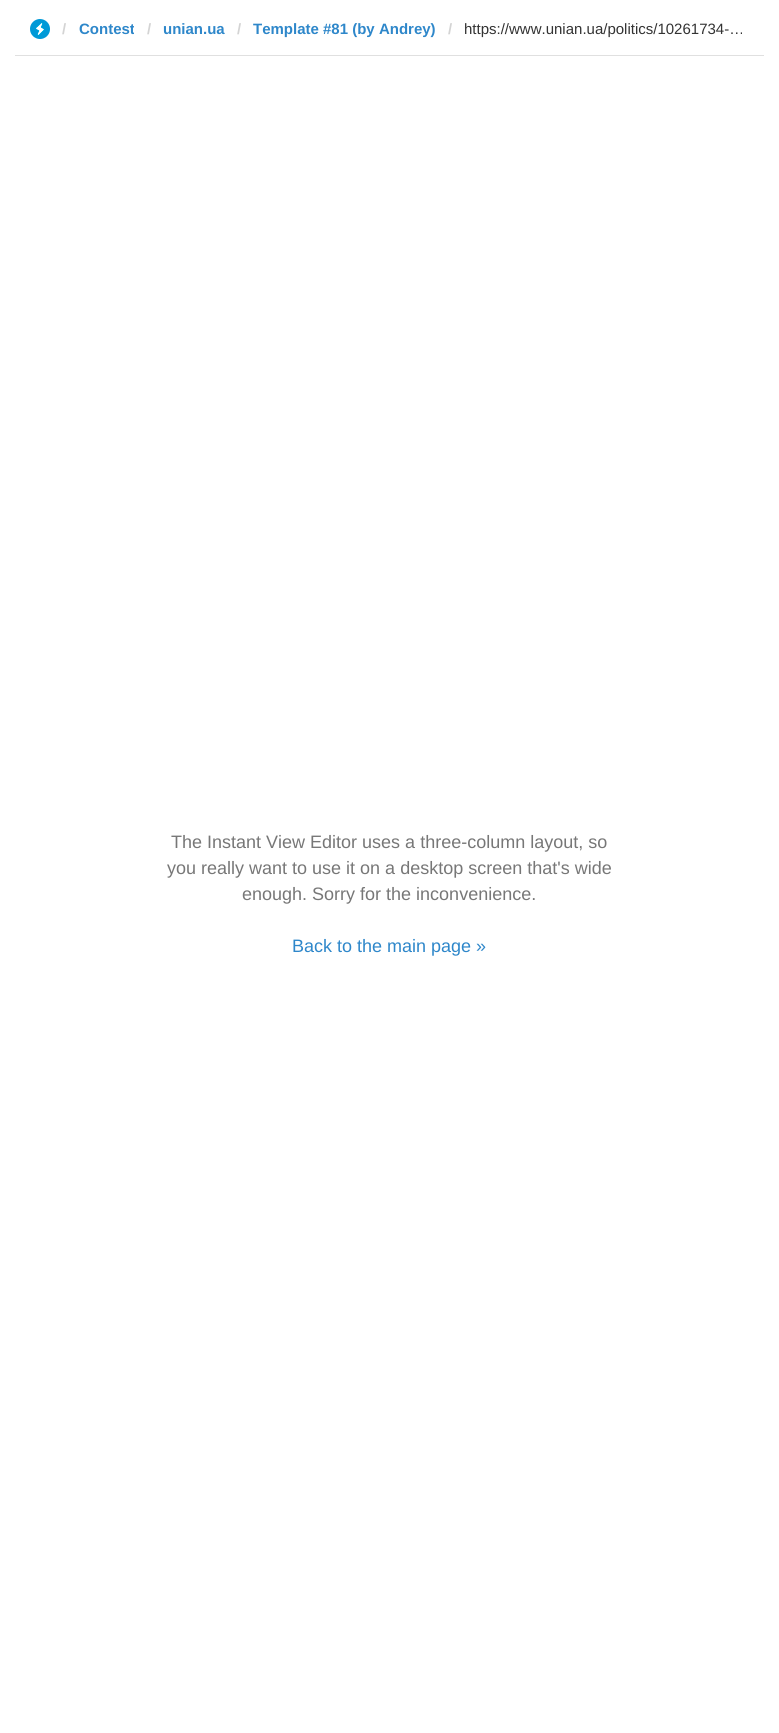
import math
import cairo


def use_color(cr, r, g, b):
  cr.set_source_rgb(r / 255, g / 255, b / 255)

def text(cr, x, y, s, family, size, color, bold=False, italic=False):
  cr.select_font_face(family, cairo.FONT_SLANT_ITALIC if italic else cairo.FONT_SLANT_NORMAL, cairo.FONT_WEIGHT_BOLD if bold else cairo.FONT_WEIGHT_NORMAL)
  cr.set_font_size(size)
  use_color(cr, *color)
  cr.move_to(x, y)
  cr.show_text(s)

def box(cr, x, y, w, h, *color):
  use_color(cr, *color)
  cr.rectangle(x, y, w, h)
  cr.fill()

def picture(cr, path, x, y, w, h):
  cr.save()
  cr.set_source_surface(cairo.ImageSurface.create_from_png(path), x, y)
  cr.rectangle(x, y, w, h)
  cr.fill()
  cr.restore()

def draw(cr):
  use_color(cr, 255, 255, 255)
  cr.paint()
  box(cr, 15, 55, 749, 1, 224, 224, 224)
  picture(cr, "img_01.png", 30, 19, 20, 20)
  text(cr, 62, 34, "/", "Liberation Sans", 15, (212, 212, 212), bold=True)
  cr.save()
  cr.rectangle(79, 19, 55, 20)
  cr.clip()
  text(cr, 79, 34, "Contest", "Liberation Sans", 15, (46, 135, 202), bold=True)
  cr.restore()
  text(cr, 147, 34, "/", "Liberation Sans", 15, (212, 212, 212), bold=True)
  text(cr, 163, 34, "unian.ua", "Liberation Sans", 15, (46, 135, 202), bold=True)
  text(cr, 237, 34, "/", "Liberation Sans", 15, (212, 212, 212), bold=True)
  text(cr, 253, 34, "Template #81 (by Andrey)", "Liberation Sans", 15, (46, 135, 202), bold=True)
  text(cr, 448, 34, "/", "Liberation Sans", 15, (212, 212, 212), bold=True)
  text(cr, 464, 34, "https://www.unian.ua/politics/10261734-…", "Liberation Sans", 15, (51, 51, 51))
  text(cr, 171, 848, "The Instant View Editor uses a three-column layout, so", "Liberation Sans", 18, (119, 119, 119))
  text(cr, 167, 874, "you really want to use it on a desktop screen that's wide", "Liberation Sans", 18, (119, 119, 119))
  text(cr, 242, 900, "enough. Sorry for the inconvenience.", "Liberation Sans", 18, (119, 119, 119))
  text(cr, 292, 952, "Back to the main page »", "Liberation Sans", 18, (46, 135, 202))


surface = cairo.ImageSurface(cairo.FORMAT_RGB24, 779, 1733)
cr = cairo.Context(surface)
options = cairo.FontOptions()
options.set_hint_metrics(cairo.HINT_METRICS_OFF)
options.set_hint_style(cairo.HINT_STYLE_NONE)
cr.set_font_options(options)
cr.set_miter_limit(4)
draw(cr)
surface.write_to_png("out.png")
